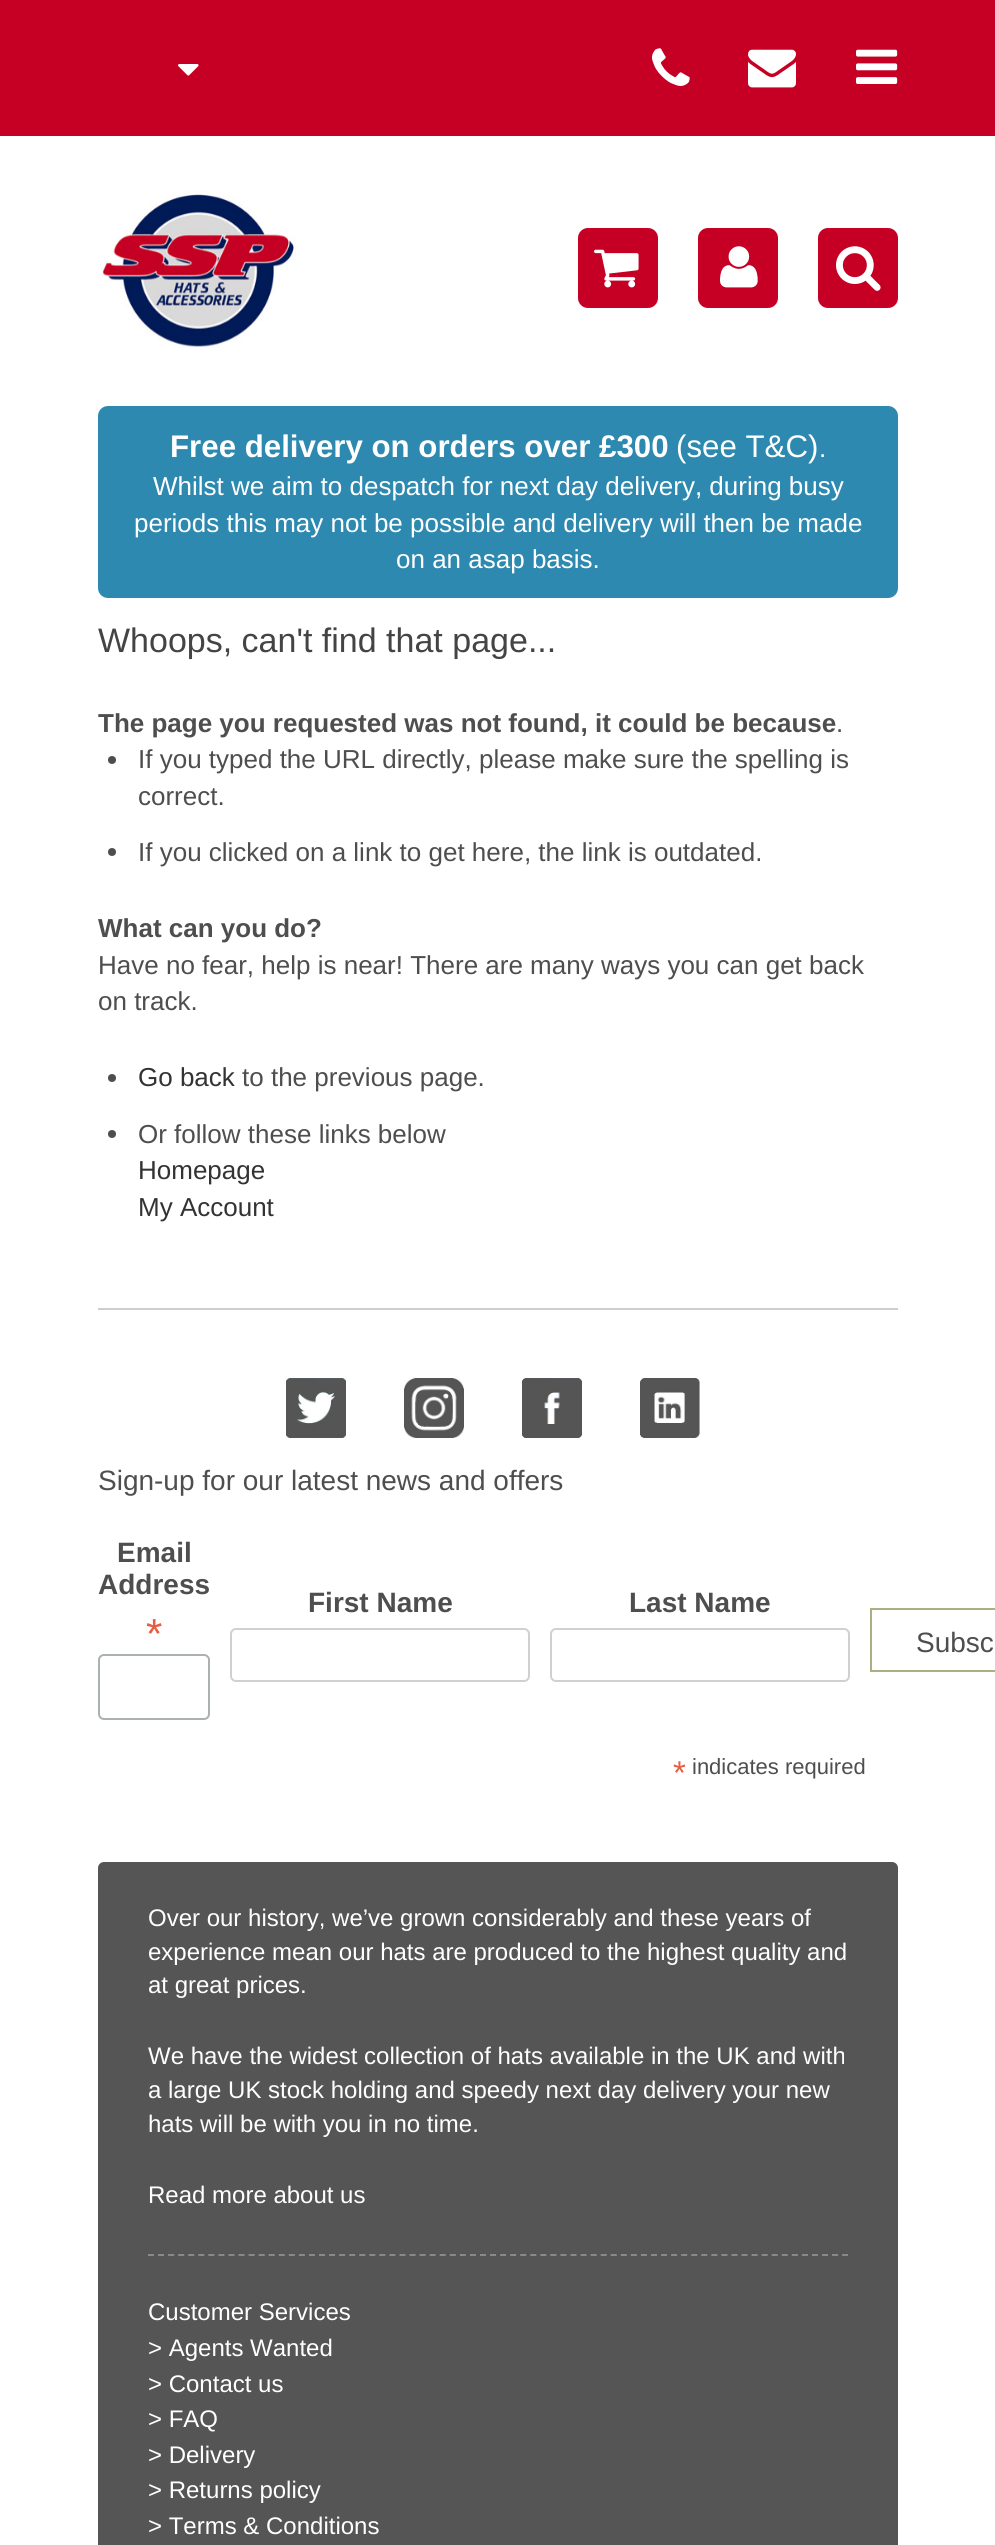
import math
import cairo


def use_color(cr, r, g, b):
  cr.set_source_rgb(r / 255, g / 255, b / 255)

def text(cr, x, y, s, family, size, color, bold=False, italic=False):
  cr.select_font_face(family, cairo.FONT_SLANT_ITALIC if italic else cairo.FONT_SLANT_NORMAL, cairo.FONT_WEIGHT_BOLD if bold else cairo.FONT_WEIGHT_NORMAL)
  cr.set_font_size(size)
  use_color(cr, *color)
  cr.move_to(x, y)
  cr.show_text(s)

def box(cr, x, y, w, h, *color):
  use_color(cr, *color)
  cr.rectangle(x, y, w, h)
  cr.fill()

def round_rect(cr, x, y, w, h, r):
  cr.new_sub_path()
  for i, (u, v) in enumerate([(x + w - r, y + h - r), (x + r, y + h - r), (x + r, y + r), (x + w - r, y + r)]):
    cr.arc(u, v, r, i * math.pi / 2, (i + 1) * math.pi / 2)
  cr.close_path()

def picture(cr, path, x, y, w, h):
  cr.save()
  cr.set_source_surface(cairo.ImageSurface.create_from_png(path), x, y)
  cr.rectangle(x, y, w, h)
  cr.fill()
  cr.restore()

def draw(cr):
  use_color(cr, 255, 255, 255)
  cr.paint()
  box(cr, 0, 0, 995, 136, 198, 0, 36)
  picture(cr, "img_01.png", 178, 64, 21, 12)
  picture(cr, "img_02.png", 652, 48, 38, 38)
  picture(cr, "img_03.png", 748, 49, 48, 39)
  picture(cr, "img_04.png", 856, 49, 42, 35)
  picture(cr, "img_05.png", 101, 190, 195, 158)
  round_rect(cr, 578, 228, 80, 80, 10)
  cr.fill()
  picture(cr, "img_06.png", 594, 249, 45, 39)
  round_rect(cr, 698, 228, 80, 80, 10)
  cr.fill()
  picture(cr, "img_07.png", 720, 246, 38, 42)
  round_rect(cr, 818, 228, 80, 80, 10)
  cr.fill()
  picture(cr, "img_08.png", 836, 246, 45, 45)
  use_color(cr, 45, 137, 176)
  round_rect(cr, 98, 406, 800, 192, 10)
  cr.fill()
  use_color(cr, 78, 78, 78)
  cr.arc(112, 760, 4, 0, 2 * math.pi)
  cr.fill()
  cr.arc(112, 852, 4, 0, 2 * math.pi)
  cr.fill()
  cr.arc(112, 1078, 4, 0, 2 * math.pi)
  cr.fill()
  cr.arc(112, 1134, 4, 0, 2 * math.pi)
  cr.fill()
  box(cr, 98, 1308, 800, 2, 206, 206, 206)
  picture(cr, "img_09.png", 286, 1378, 60, 60)
  picture(cr, "img_10.png", 404, 1378, 60, 60)
  picture(cr, "img_11.png", 522, 1378, 60, 60)
  picture(cr, "img_12.png", 640, 1378, 60, 60)
  round_rect(cr, 99, 1655, 110, 64, 5)
  use_color(cr, 171, 176, 178)
  cr.stroke()
  round_rect(cr, 231, 1629, 298, 52, 5)
  use_color(cr, 208, 208, 208)
  cr.stroke()
  round_rect(cr, 551, 1629, 298, 52, 5)
  cr.stroke()
  cr.rectangle(871, 1609, 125, 62)
  use_color(cr, 171, 176, 130)
  cr.stroke()
  use_color(cr, 85, 85, 85)
  round_rect(cr, 98, 1862, 800, 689, 6)
  cr.fill()
  cr.new_path()
  cr.move_to(148, 2255)
  cr.line_to(848, 2255)
  use_color(cr, 137, 137, 137)
  cr.set_dash([6, 4.06])
  cr.stroke()
  text(cr, 170, 457, "Free delivery on orders over £300", "Liberation Sans", 31.25, (255, 255, 255), bold=True)
  text(cr, 676, 457, "(see T&C)", "Liberation Sans", 31.25, (255, 255, 255))
  text(cr, 819, 457, ".", "Liberation Sans", 26, (255, 255, 255))
  text(cr, 153, 495, "Whilst we aim to despatch for next day delivery, during busy", "Liberation Sans", 26, (255, 255, 255))
  text(cr, 134, 532, "periods this may not be possible and delivery will then be made", "Liberation Sans", 26, (255, 255, 255))
  text(cr, 396, 568, "on an asap basis.", "Liberation Sans", 26, (255, 255, 255))
  text(cr, 98, 652, "Whoops, can't find that page...", "Liberation Sans", 34, (68, 68, 68))
  text(cr, 98, 732, "The page you requested was not found, it could be because", "Liberation Sans", 26, (78, 78, 78), bold=True)
  text(cr, 836, 732, ".", "Liberation Sans", 26, (78, 78, 78))
  text(cr, 138, 768, "If you typed the URL directly, please make sure the spelling is", "Liberation Sans", 26, (78, 78, 78))
  text(cr, 138, 805, "correct.", "Liberation Sans", 26, (78, 78, 78))
  text(cr, 138, 861, "If you clicked on a link to get here, the link is outdated.", "Liberation Sans", 26, (78, 78, 78))
  text(cr, 98, 937, "What can you do?", "Liberation Sans", 26, (78, 78, 78), bold=True)
  text(cr, 98, 974, "Have no fear, help is near! There are many ways you can get back", "Liberation Sans", 26, (78, 78, 78))
  text(cr, 98, 1010, "on track.", "Liberation Sans", 26, (78, 78, 78))
  text(cr, 138, 1086, "Go back", "Liberation Sans", 26, (51, 51, 51))
  text(cr, 242, 1086, "to the previous page.", "Liberation Sans", 26, (78, 78, 78))
  text(cr, 138, 1143, "Or follow these links below", "Liberation Sans", 26, (78, 78, 78))
  text(cr, 138, 1179, "Homepage", "Liberation Sans", 26, (51, 51, 51))
  text(cr, 138, 1216, "My Account", "Liberation Sans", 26, (51, 51, 51))
  text(cr, 98, 1490, "Sign-up for our latest news and offers", "Liberation Sans", 28, (78, 78, 78))
  text(cr, 117, 1562, "Email", "Liberation Sans", 28, (78, 78, 78), bold=True)
  text(cr, 98, 1594, "Address", "Liberation Sans", 28, (78, 78, 78), bold=True)
  text(cr, 146, 1648, "*", "Liberation Sans", 42, (232, 92, 65))
  text(cr, 308, 1612, "First Name", "Liberation Sans", 28, (78, 78, 78), bold=True)
  text(cr, 629, 1612, "Last Name", "Liberation Sans", 28, (78, 78, 78), bold=True)
  text(cr, 916, 1652, "Subsc", "Liberation Sans", 28, (78, 78, 78))
  text(cr, 673, 1784, "*", "Liberation Sans", 33, (232, 92, 65))
  text(cr, 692, 1774, "indicates required", "Liberation Sans", 22, (78, 78, 78))
  text(cr, 148, 1926, "Over our history, we’ve grown considerably and these years of", "Liberation Sans", 24, (255, 255, 255))
  text(cr, 148, 1960, "experience mean our hats are produced to the highest quality and", "Liberation Sans", 24, (255, 255, 255))
  text(cr, 148, 1993, "at great prices.", "Liberation Sans", 24, (255, 255, 255))
  text(cr, 148, 2064, "We have the widest collection of hats available in the UK and with", "Liberation Sans", 24, (255, 255, 255))
  text(cr, 148, 2098, "a large UK stock holding and speedy next day delivery your new", "Liberation Sans", 24, (255, 255, 255))
  text(cr, 148, 2132, "hats will be with you in no time.", "Liberation Sans", 24, (255, 255, 255))
  text(cr, 148, 2203, "Read more about us", "Liberation Sans", 24, (255, 255, 255))
  text(cr, 148, 2320, "Customer Services", "Liberation Sans", 24, (255, 255, 255))
  text(cr, 148, 2356, "> Agents Wanted", "Liberation Sans", 24, (255, 255, 255))
  text(cr, 148, 2392, "> Contact us", "Liberation Sans", 24, (255, 255, 255))
  text(cr, 148, 2427, "> FAQ", "Liberation Sans", 24, (255, 255, 255))
  text(cr, 148, 2463, "> Delivery", "Liberation Sans", 24, (255, 255, 255))
  text(cr, 148, 2498, "> Returns policy", "Liberation Sans", 24, (255, 255, 255))
  text(cr, 148, 2534, "> Terms & Conditions", "Liberation Sans", 24, (255, 255, 255))


surface = cairo.ImageSurface(cairo.FORMAT_RGB24, 995, 2545)
cr = cairo.Context(surface)
options = cairo.FontOptions()
options.set_hint_metrics(cairo.HINT_METRICS_OFF)
options.set_hint_style(cairo.HINT_STYLE_NONE)
cr.set_font_options(options)
cr.set_miter_limit(4)
draw(cr)
surface.write_to_png("out.png")
